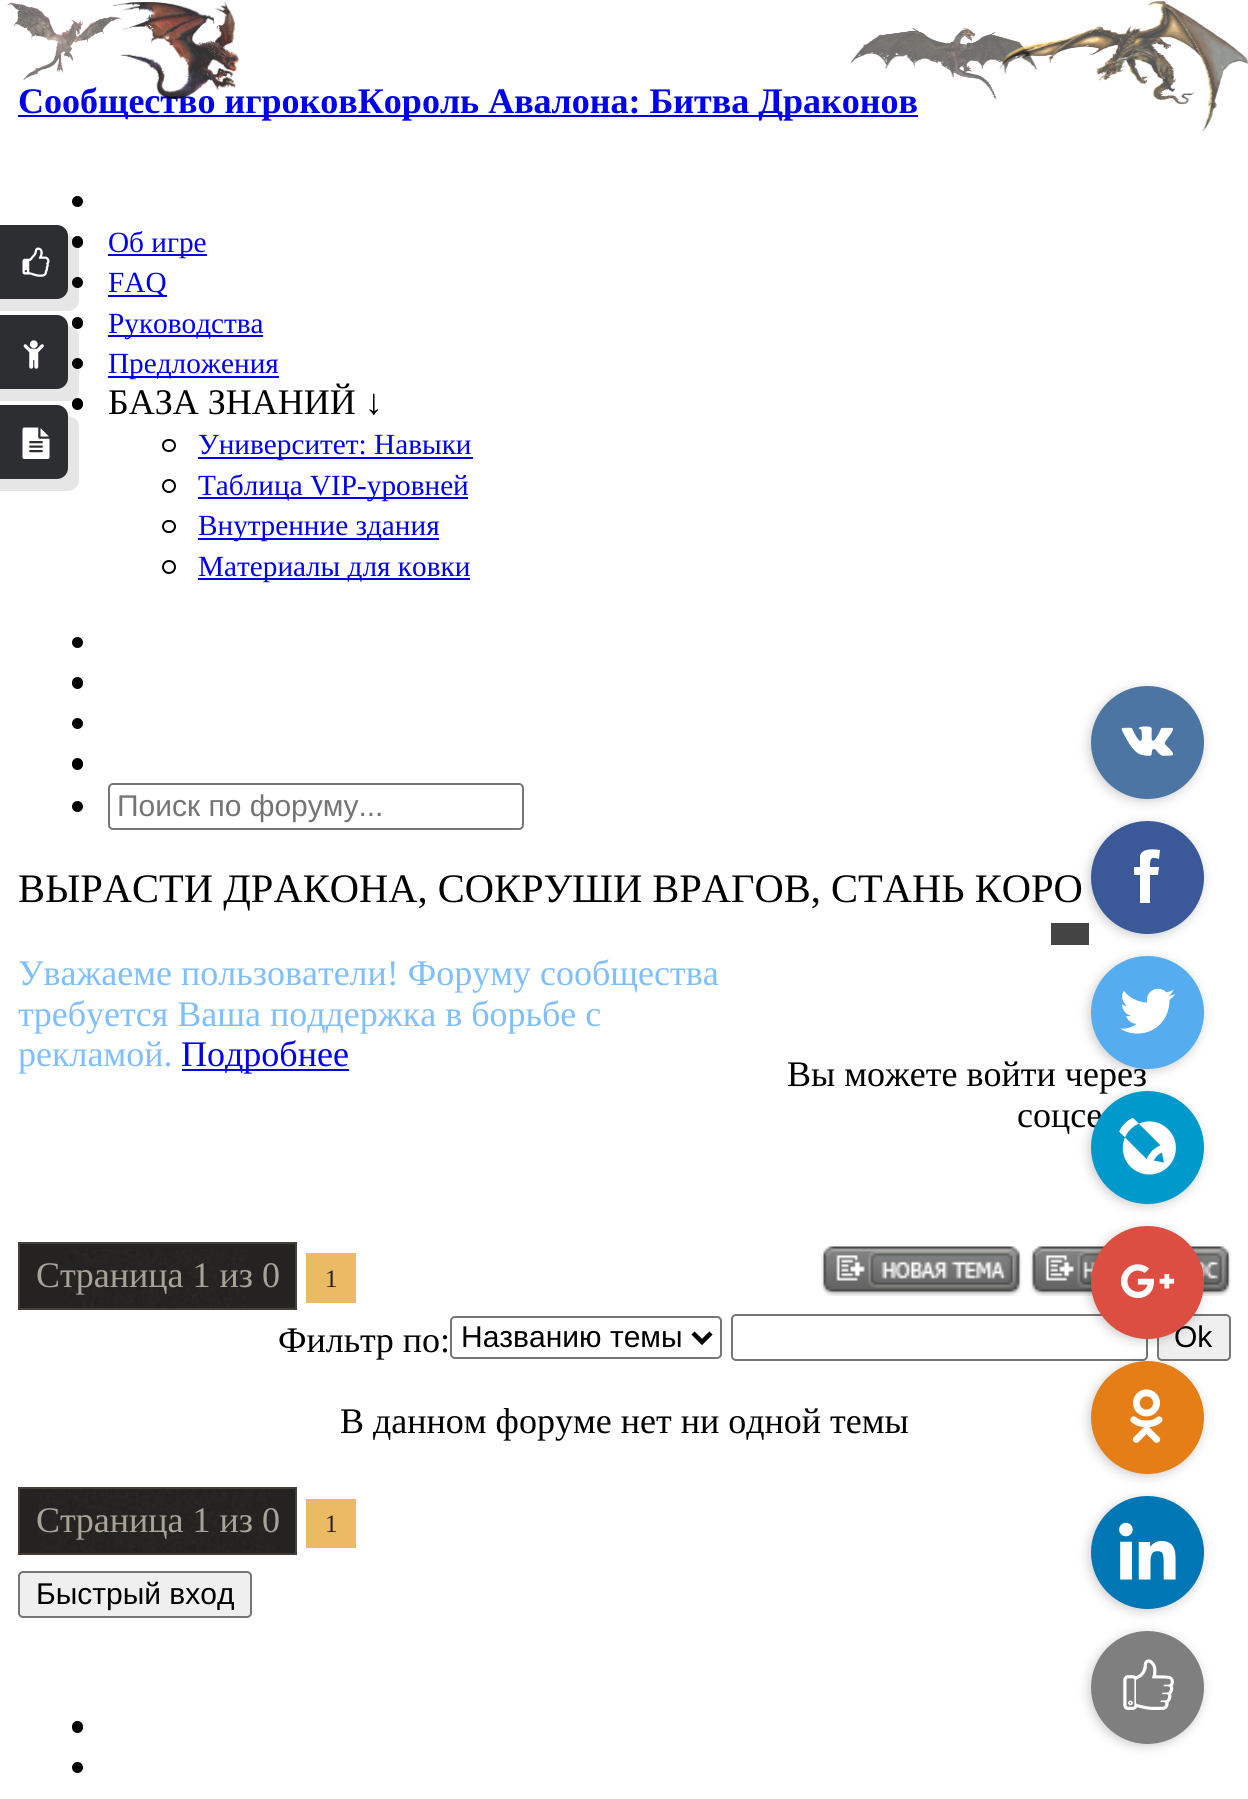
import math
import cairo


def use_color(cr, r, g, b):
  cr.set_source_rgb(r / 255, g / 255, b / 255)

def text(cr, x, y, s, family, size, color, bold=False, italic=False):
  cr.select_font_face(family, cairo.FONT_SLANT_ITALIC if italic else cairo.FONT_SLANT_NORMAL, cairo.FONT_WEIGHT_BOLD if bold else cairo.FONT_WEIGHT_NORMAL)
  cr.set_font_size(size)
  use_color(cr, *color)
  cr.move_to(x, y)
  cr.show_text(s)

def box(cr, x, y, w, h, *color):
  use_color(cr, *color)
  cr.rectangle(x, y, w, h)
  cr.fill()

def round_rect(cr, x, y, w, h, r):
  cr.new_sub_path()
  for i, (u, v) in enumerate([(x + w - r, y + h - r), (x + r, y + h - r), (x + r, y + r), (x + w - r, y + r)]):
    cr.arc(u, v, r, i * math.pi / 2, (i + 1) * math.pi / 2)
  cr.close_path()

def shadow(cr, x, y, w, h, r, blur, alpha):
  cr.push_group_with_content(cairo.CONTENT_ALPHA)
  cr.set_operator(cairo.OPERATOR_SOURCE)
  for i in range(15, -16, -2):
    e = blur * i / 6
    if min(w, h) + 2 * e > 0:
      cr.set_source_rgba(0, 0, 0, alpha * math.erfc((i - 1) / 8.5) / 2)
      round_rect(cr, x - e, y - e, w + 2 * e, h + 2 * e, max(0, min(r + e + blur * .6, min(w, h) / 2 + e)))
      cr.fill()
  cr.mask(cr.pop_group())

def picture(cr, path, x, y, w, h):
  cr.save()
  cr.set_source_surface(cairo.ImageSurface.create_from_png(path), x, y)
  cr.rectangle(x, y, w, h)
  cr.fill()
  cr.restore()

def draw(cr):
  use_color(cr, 255, 255, 255)
  cr.paint()
  box(cr, 18, 115, 900, 2, 0, 0, 238)
  use_color(cr, 0, 0, 0)
  cr.arc(77.5, 201.5, 5.5, 0, 2 * math.pi)
  cr.fill()
  round_rect(cr, 72, 236, 11, 12, 5.5)
  cr.fill()
  box(cr, 108, 254, 99, 2, 0, 0, 238)
  use_color(cr, 0, 0, 0)
  cr.arc(77.5, 282.5, 5.5, 0, 2 * math.pi)
  cr.fill()
  box(cr, 108, 295, 59, 2, 0, 0, 238)
  use_color(cr, 0, 0, 0)
  round_rect(cr, 72, 317, 11, 12, 5.5)
  cr.fill()
  box(cr, 108, 335, 155, 2, 0, 0, 238)
  use_color(cr, 0, 0, 0)
  cr.arc(77.5, 363.5, 5.5, 0, 2 * math.pi)
  cr.fill()
  box(cr, 108, 376, 171, 2, 0, 0, 238)
  use_color(cr, 0, 0, 0)
  round_rect(cr, 72, 398, 11, 12, 5.5)
  cr.fill()
  round_rect(cr, 163, 440, 12, 11, 5.5)
  cr.stroke()
  box(cr, 198, 457, 275, 2, 0, 0, 238)
  cr.arc(169, 486, 6, 0, 2 * math.pi)
  use_color(cr, 0, 0, 0)
  cr.stroke()
  box(cr, 198, 497, 270, 2, 0, 0, 238)
  round_rect(cr, 163, 521, 12, 11, 5.5)
  use_color(cr, 0, 0, 0)
  cr.stroke()
  box(cr, 198, 538, 241, 2, 0, 0, 238)
  cr.arc(169, 567, 6, 0, 2 * math.pi)
  use_color(cr, 0, 0, 0)
  cr.stroke()
  box(cr, 198, 578, 272, 2, 0, 0, 238)
  use_color(cr, 0, 0, 0)
  cr.arc(77.5, 642.5, 5.5, 0, 2 * math.pi)
  cr.fill()
  round_rect(cr, 72, 677, 11, 12, 5.5)
  cr.fill()
  cr.arc(77.5, 723.5, 5.5, 0, 2 * math.pi)
  cr.fill()
  round_rect(cr, 72, 758, 11, 12, 5.5)
  cr.fill()
  cr.arc(77.5, 806.5, 5.5, 0, 2 * math.pi)
  cr.fill()
  round_rect(cr, 109, 784, 414, 45, 4)
  use_color(cr, 118, 118, 118)
  cr.stroke()
  cr.set_source_rgba(0, 0, 0, 0.1)
  cr.new_path()
  cr.move_to(0, 299)
  cr.line_to(0, 311)
  cr.line_to(68, 311)
  cr.curve_to(74, 311, 79, 306, 79, 300)
  cr.line_to(79, 247)
  cr.curve_to(79, 241, 74, 236, 68, 236)
  cr.line_to(67, 236)
  cr.line_to(68, 279)
  cr.curve_to(68, 287, 69, 297, 59, 299)
  cr.close_path()
  cr.fill()
  use_color(cr, 44, 46, 50)
  cr.new_path()
  cr.move_to(-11, 225)
  cr.line_to(57, 225)
  cr.curve_to(63, 225, 68, 230, 68, 236)
  cr.line_to(68, 288)
  cr.curve_to(68, 294, 63, 299, 57, 299)
  cr.line_to(-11, 299)
  cr.close_path()
  cr.fill()
  picture(cr, "img_01.png", 22, 247, 28, 30)
  cr.set_source_rgba(0, 0, 0, 0.1)
  cr.new_path()
  cr.move_to(0, 389)
  cr.line_to(0, 401)
  cr.line_to(68, 401)
  cr.curve_to(74, 401, 79, 396, 79, 390)
  cr.line_to(79, 337)
  cr.curve_to(79, 331, 74, 326, 68, 326)
  cr.line_to(67, 326)
  cr.line_to(68, 369)
  cr.curve_to(68, 377, 69, 387, 59, 389)
  cr.close_path()
  cr.fill()
  use_color(cr, 44, 46, 50)
  cr.new_path()
  cr.move_to(-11, 315)
  cr.line_to(57, 315)
  cr.curve_to(63, 315, 68, 320, 68, 326)
  cr.line_to(68, 378)
  cr.curve_to(68, 384, 63, 389, 57, 389)
  cr.line_to(-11, 389)
  cr.close_path()
  cr.fill()
  picture(cr, "img_02.png", 23, 340, 21, 29)
  use_color(cr, 230, 230, 230)
  cr.new_path()
  cr.move_to(0, 479)
  cr.line_to(0, 491)
  cr.line_to(68, 491)
  cr.curve_to(74, 491, 79, 486, 79, 480)
  cr.line_to(79, 427)
  cr.curve_to(79, 421, 74, 416, 68, 416)
  cr.line_to(67, 416)
  cr.line_to(68, 459)
  cr.curve_to(68, 467, 69, 477, 59, 479)
  cr.close_path()
  cr.fill()
  use_color(cr, 44, 46, 50)
  cr.new_path()
  cr.move_to(-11, 405)
  cr.line_to(57, 405)
  cr.curve_to(63, 405, 68, 410, 68, 416)
  cr.line_to(68, 468)
  cr.curve_to(68, 474, 63, 479, 57, 479)
  cr.line_to(-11, 479)
  cr.close_path()
  cr.fill()
  picture(cr, "img_03.png", 22, 427, 28, 32)
  picture(cr, "img_04.png", 7, 2, 115, 78)
  use_color(cr, 0, 0, 0)
  shadow(cr, 1089, 689, 113, 112, 56, 5.5, 0.2)
  use_color(cr, 77, 117, 163)
  cr.arc(1147.5, 742.5, 56.5, 0, 2 * math.pi)
  cr.fill()
  picture(cr, "img_08.png", 1121, 726, 53, 30)
  box(cr, 1051, 923, 38, 22, 68, 68, 68)
  use_color(cr, 0, 0, 0)
  shadow(cr, 1089, 824, 113, 112, 56, 5.5, 0.2)
  use_color(cr, 59, 89, 152)
  cr.arc(1147.5, 877.5, 56.5, 0, 2 * math.pi)
  cr.fill()
  use_color(cr, 255, 255, 255)
  cr.new_path()
  cr.move_to(1134, 867)
  cr.line_to(1140, 867)
  cr.line_to(1140, 856)
  cr.curve_to(1142, 848, 1153, 849, 1160, 850)
  cr.line_to(1159, 859)
  cr.curve_to(1150, 856, 1150, 859, 1150, 867)
  cr.line_to(1159, 867)
  cr.line_to(1158, 875)
  cr.line_to(1150, 875)
  cr.line_to(1150, 903)
  cr.line_to(1140, 903)
  cr.line_to(1140, 875)
  cr.line_to(1134, 875)
  cr.close_path()
  cr.fill()
  use_color(cr, 0, 0, 0)
  shadow(cr, 1089, 959, 113, 112, 56, 5.5, 0.2)
  shadow(cr, 1089, 1094, 113, 112, 56, 5.5, 0.2)
  picture(cr, "img_17.png", 1030, 1246, 201, 50)
  round_rect(cr, 732, 1315, 415, 45, 4)
  use_color(cr, 118, 118, 118)
  cr.stroke()
  use_color(cr, 239, 239, 239)
  round_rect(cr, 1158, 1315, 72, 45, 4)
  cr.fill_preserve()
  use_color(cr, 118, 118, 118)
  cr.stroke()
  use_color(cr, 0, 0, 0)
  shadow(cr, 1089, 1229, 113, 112, 56, 5.5, 0.2)
  shadow(cr, 1089, 1364, 113, 112, 56, 5.5, 0.2)
  use_color(cr, 230, 126, 23)
  cr.arc(1147.5, 1417.5, 56.5, 0, 2 * math.pi)
  cr.fill()
  picture(cr, "img_12.png", 1130, 1389, 33, 54)
  use_color(cr, 0, 0, 0)
  shadow(cr, 1089, 1499, 113, 112, 56, 5.5, 0.2)
  use_color(cr, 0, 119, 181)
  cr.arc(1147.5, 1552.5, 56.5, 0, 2 * math.pi)
  cr.fill()
  picture(cr, "img_13.png", 1119, 1522, 57, 58)
  cr.save()
  cr.set_fill_rule(cairo.FILL_RULE_EVEN_ODD)
  cr.new_path()
  cr.move_to(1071, 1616)
  cr.line_to(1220, 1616)
  cr.line_to(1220, 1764)
  cr.line_to(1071, 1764)
  cr.close_path()
  cr.move_to(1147.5, 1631)
  cr.curve_to(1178.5, 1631, 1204, 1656.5, 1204, 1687.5)
  cr.curve_to(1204, 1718.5, 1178.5, 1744, 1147.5, 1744)
  cr.curve_to(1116.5, 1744, 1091, 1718.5, 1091, 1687.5)
  cr.curve_to(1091, 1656.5, 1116.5, 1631, 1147.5, 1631)
  cr.close_path()
  cr.clip()
  use_color(cr, 0, 0, 0)
  shadow(cr, 1089, 1634, 113, 112, 56, 5.5, 0.2)
  cr.restore()
  cr.set_source_rgba(0, 0, 0, 0.5)
  cr.arc(1147.5, 1687.5, 56.5, 0, 2 * math.pi)
  cr.fill()
  picture(cr, "img_14.png", 1123, 1659, 51, 51)
  box(cr, 182, 1069, 167, 2, 0, 0, 238)
  box(cr, 20, 1244, 275, 64, 37, 35, 34)
  picture(cr, "img_15.png", 66, 1249, 181, 59)
  cr.rectangle(19, 1243, 277, 66)
  use_color(cr, 67, 62, 56)
  cr.stroke()
  box(cr, 306, 1253, 50, 50, 235, 186, 100)
  picture(cr, "img_16.png", 821, 1246, 201, 50)
  round_rect(cr, 451, 1317, 270, 41, 4)
  use_color(cr, 118, 118, 118)
  cr.stroke()
  cr.new_path()
  cr.move_to(693, 1333)
  cr.line_to(702, 1342)
  cr.line_to(711, 1333)
  use_color(cr, 0, 0, 0)
  cr.set_line_width(4.5)
  cr.stroke()
  box(cr, 20, 1489, 275, 64, 37, 35, 34)
  picture(cr, "img_18.png", 39, 1489, 235, 63)
  cr.rectangle(19, 1488, 277, 66)
  use_color(cr, 67, 62, 56)
  cr.set_line_width(2)
  cr.stroke()
  box(cr, 306, 1499, 50, 49, 235, 186, 100)
  use_color(cr, 239, 239, 239)
  round_rect(cr, 19, 1572, 232, 45, 4)
  cr.fill_preserve()
  use_color(cr, 118, 118, 118)
  cr.stroke()
  use_color(cr, 0, 0, 0)
  round_rect(cr, 72, 1721, 11, 12, 5.5)
  cr.fill()
  cr.arc(77.5, 1767.5, 5.5, 0, 2 * math.pi)
  cr.fill()
  text(cr, 18, 113, "Сообщество игроковКороль Авалона: Битва Драконов", "Liberation Serif", 36, (0, 0, 238), bold=True)
  text(cr, 108, 252, "Об игре", "Liberation Serif", 29.25, (0, 0, 238))
  text(cr, 108, 292, "FAQ", "Liberation Serif", 29.25, (0, 0, 238))
  text(cr, 108, 333, "Руководства", "Liberation Serif", 29.25, (0, 0, 238))
  text(cr, 108, 373, "Предложения", "Liberation Serif", 29.25, (0, 0, 238))
  text(cr, 108, 414, "БАЗА ЗНАНИЙ ↓", "Liberation Serif", 36, (0, 0, 0))
  text(cr, 198, 454, "Университет: Навыки", "Liberation Serif", 29.25, (0, 0, 238))
  text(cr, 198, 495, "Таблица VIP-уровней", "Liberation Serif", 29.25, (0, 0, 238))
  text(cr, 198, 535, "Внутренние здания", "Liberation Serif", 29.25, (0, 0, 238))
  text(cr, 198, 576, "Материалы для ковки", "Liberation Serif", 29.25, (0, 0, 238))
  text(cr, 117, 816, "Поиск по форуму...", "Liberation Sans", 30, (117, 117, 117))
  picture(cr, "img_05.png", 112, 0, 127, 99)
  picture(cr, "img_06.png", 850, 27, 187, 73)
  picture(cr, "img_07.png", 999, 0, 249, 132)
  text(cr, 18, 902, "ВЫРАСТИ ДРАКОНА, СОКРУШИ ВРАГОВ, СТАНЬ КОРО", "Liberation Serif", 40.5, (0, 0, 0))
  text(cr, 18, 985, "Уважаеме пользователи! Форуму сообщества", "Liberation Serif", 36, (128, 191, 255))
  text(cr, 18, 1026, "требуется Ваша поддержка в борьбе с", "Liberation Serif", 36, (128, 191, 255))
  text(cr, 18, 1066, "рекламой.", "Liberation Serif", 36, (128, 191, 255))
  text(cr, 181, 1066, "Подробнее", "Liberation Serif", 36, (0, 0, 238))
  text(cr, 787, 1086, "Вы можете войти через", "Liberation Serif", 36, (0, 0, 0))
  use_color(cr, 85, 172, 238)
  cr.new_path()
  cr.arc(1147.5, 1012.5, 56.5, 0, 2 * math.pi)
  cr.fill()
  picture(cr, "img_09.png", 1120, 988, 55, 46)
  text(cr, 1017, 1127, "соцсе", "Liberation Serif", 36, (0, 0, 0))
  use_color(cr, 0, 153, 204)
  cr.new_path()
  cr.arc(1147.5, 1147.5, 56.5, 0, 2 * math.pi)
  cr.fill()
  picture(cr, "img_10.png", 1119, 1117, 57, 58)
  text(cr, 36, 1287, "Страница 1 из 0", "Liberation Serif", 36, (169, 163, 151))
  text(cr, 325, 1287, "1", "Liberation Serif", 25, (37, 35, 34))
  text(cr, 278, 1352, "Фильтр по:", "Liberation Serif", 36, (0, 0, 0))
  text(cr, 461, 1347, "Названию темы", "Liberation Sans", 30, (0, 0, 0))
  text(cr, 1174, 1347, "Ok", "Liberation Sans", 30, (0, 0, 0))
  use_color(cr, 220, 78, 65)
  cr.new_path()
  cr.arc(1147.5, 1282.5, 56.5, 0, 2 * math.pi)
  cr.fill()
  picture(cr, "img_11.png", 1121, 1264, 54, 35)
  text(cr, 340, 1433, "В данном форуме нет ни одной темы", "Liberation Serif", 36, (0, 0, 0))
  text(cr, 36, 1532, "Страница 1 из 0", "Liberation Serif", 36, (169, 163, 151))
  text(cr, 325, 1532, "1", "Liberation Serif", 25, (37, 35, 34))
  text(cr, 36, 1604, "Быстрый вход", "Liberation Sans", 30, (0, 0, 0))


surface = cairo.ImageSurface(cairo.FORMAT_RGB24, 1248, 1799)
cr = cairo.Context(surface)
options = cairo.FontOptions()
options.set_hint_metrics(cairo.HINT_METRICS_OFF)
options.set_hint_style(cairo.HINT_STYLE_NONE)
cr.set_font_options(options)
cr.set_miter_limit(4)
draw(cr)
surface.write_to_png("out.png")
